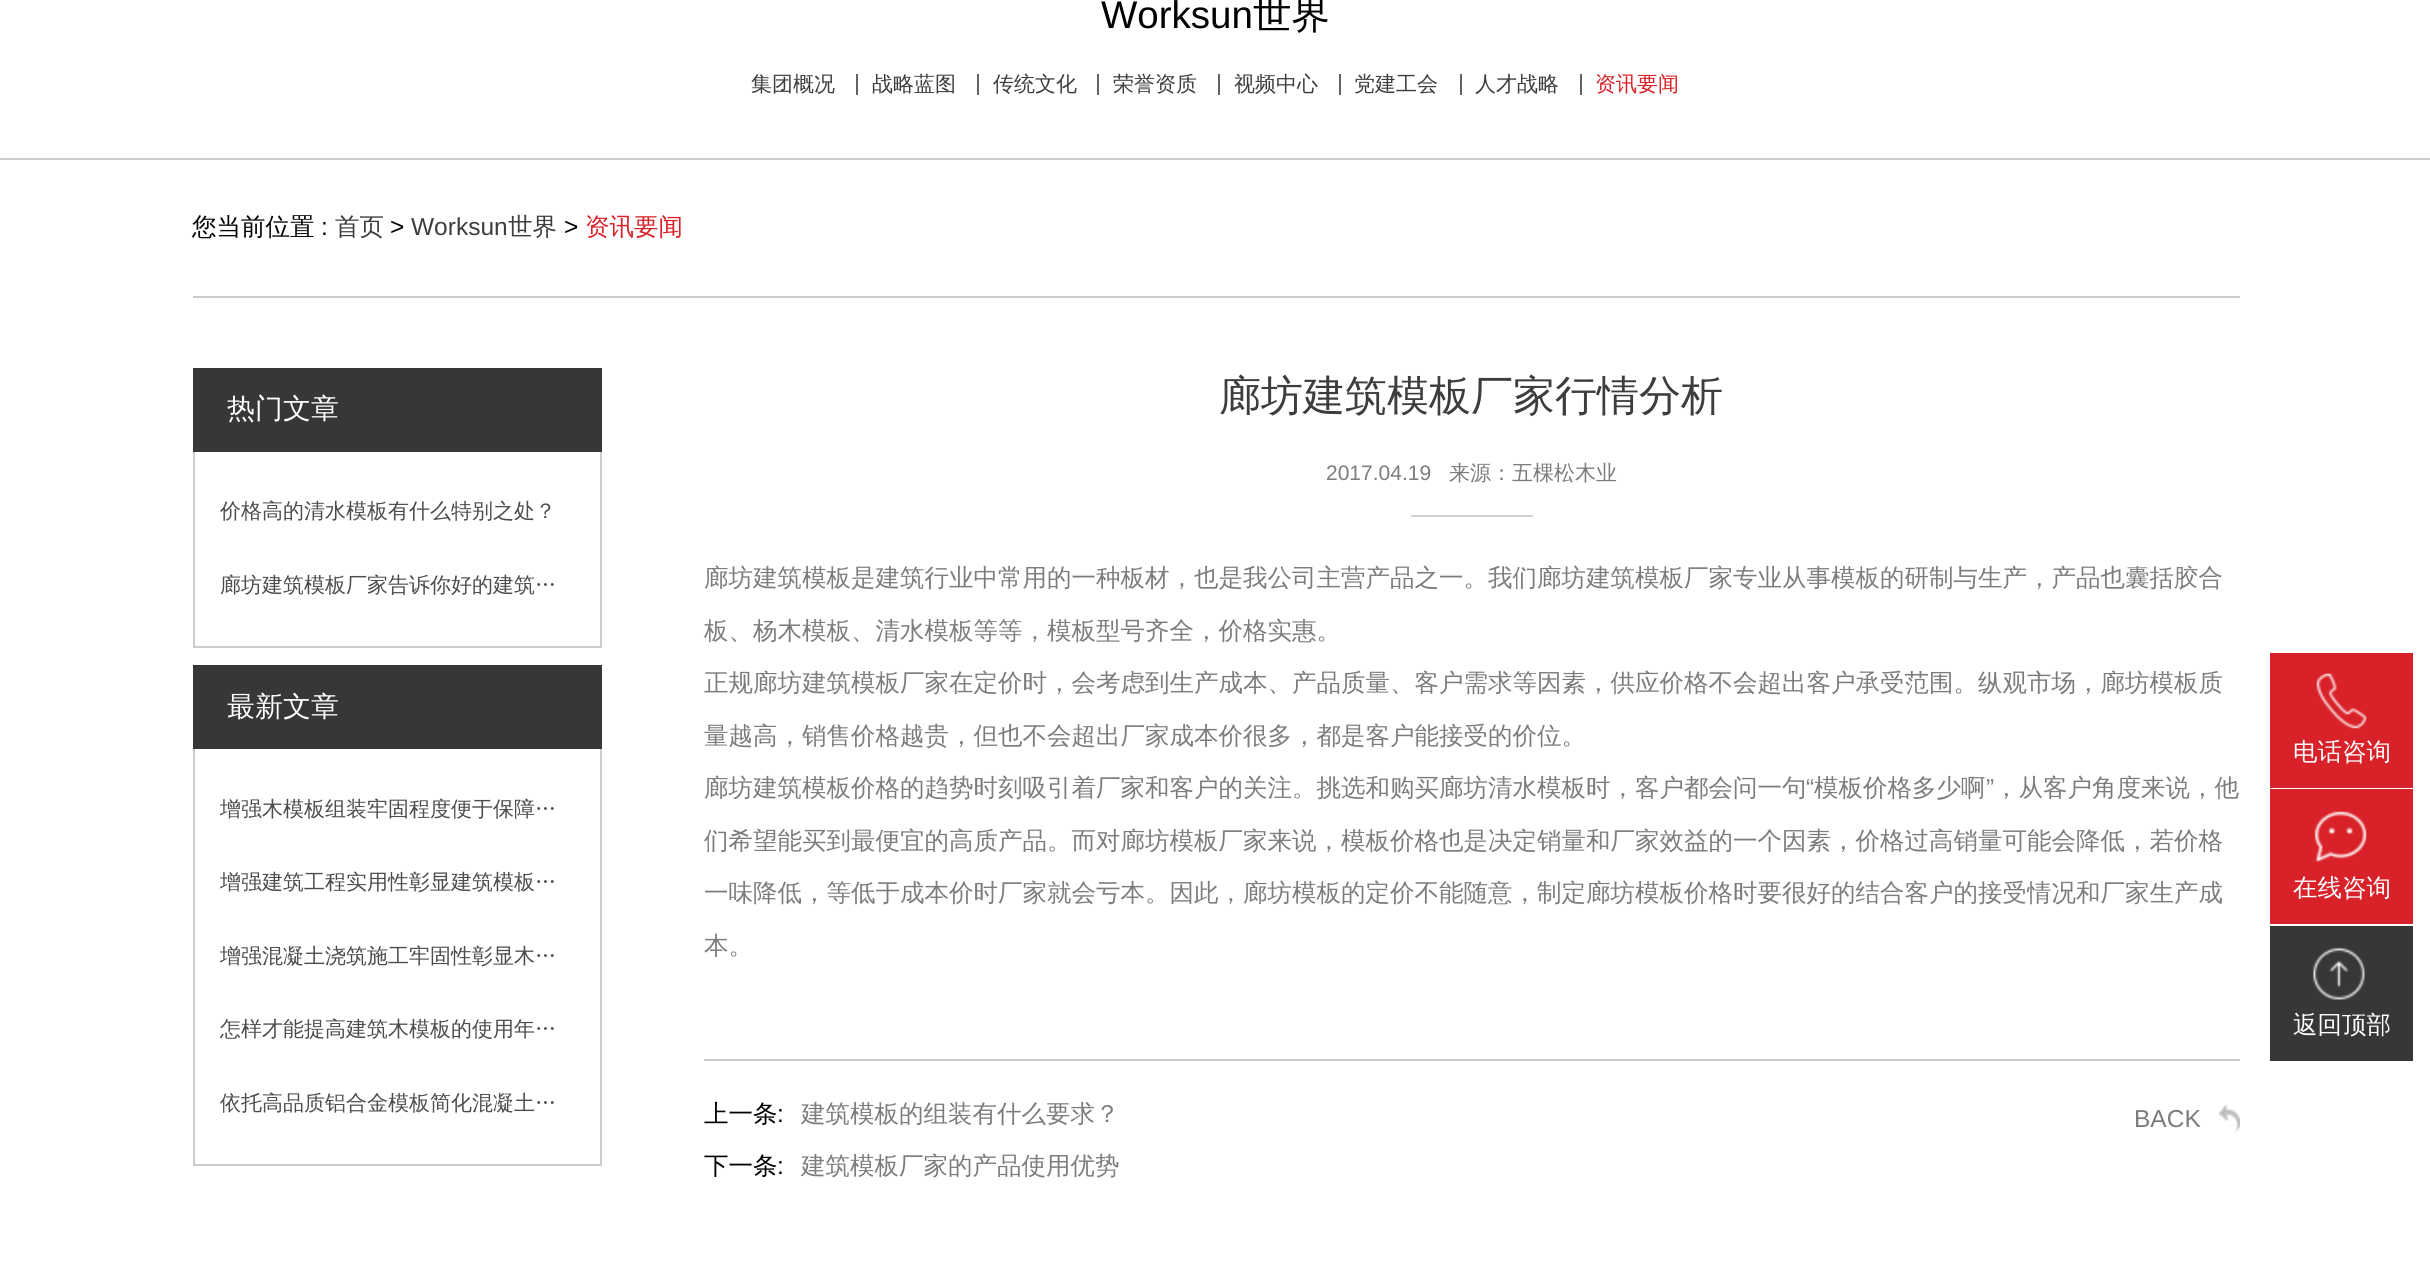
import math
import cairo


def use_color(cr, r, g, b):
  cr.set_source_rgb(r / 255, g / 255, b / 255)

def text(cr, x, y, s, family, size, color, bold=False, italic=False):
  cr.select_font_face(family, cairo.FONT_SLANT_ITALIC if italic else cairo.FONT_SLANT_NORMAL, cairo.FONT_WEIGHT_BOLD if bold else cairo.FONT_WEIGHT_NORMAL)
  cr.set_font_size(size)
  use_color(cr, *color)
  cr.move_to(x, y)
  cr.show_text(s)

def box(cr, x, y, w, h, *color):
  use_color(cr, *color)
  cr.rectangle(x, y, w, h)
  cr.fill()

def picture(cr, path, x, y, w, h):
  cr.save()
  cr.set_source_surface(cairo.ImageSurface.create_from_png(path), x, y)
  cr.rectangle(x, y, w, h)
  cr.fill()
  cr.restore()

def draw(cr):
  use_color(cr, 255, 255, 255)
  cr.paint()
  box(cr, 0, 158, 2430, 2, 203, 203, 203)
  box(cr, 856, 74, 2, 21, 99, 99, 99)
  box(cr, 977, 74, 2, 21, 99, 99, 99)
  box(cr, 1097, 74, 2, 21, 99, 99, 99)
  box(cr, 1218, 74, 2, 21, 99, 99, 99)
  box(cr, 1339, 74, 2, 21, 99, 99, 99)
  box(cr, 1460, 74, 2, 21, 99, 99, 99)
  box(cr, 1580, 74, 2, 21, 99, 99, 99)
  box(cr, 193, 296, 2047, 2, 203, 203, 203)
  box(cr, 193, 368, 409, 84, 55, 55, 55)
  box(cr, 600, 452, 2, 196, 205, 205, 205)
  box(cr, 193, 646, 409, 2, 205, 205, 205)
  box(cr, 193, 452, 2, 196, 205, 205, 205)
  box(cr, 193, 665, 409, 84, 55, 55, 55)
  box(cr, 600, 749, 2, 417, 205, 205, 205)
  box(cr, 193, 1164, 409, 2, 205, 205, 205)
  box(cr, 193, 749, 2, 417, 205, 205, 205)
  box(cr, 1411, 515, 122, 2, 209, 209, 209)
  box(cr, 704, 1059, 1536, 2, 203, 203, 203)
  picture(cr, "img_01.png", 2219, 1104, 21, 29)
  box(cr, 2270, 653, 143, 135, 216, 33, 40)
  picture(cr, "img_02.png", 2316, 673, 51, 56)
  box(cr, 2270, 789, 143, 135, 216, 33, 40)
  picture(cr, "img_03.png", 2314, 811, 53, 51)
  box(cr, 2270, 926, 143, 135, 55, 55, 55)
  picture(cr, "img_04.png", 2312, 947, 53, 53)
  text(cr, 1101, 28, "Worksun", "Liberation Sans", 38.5, (1, 1, 1))
  text(cr, 1253, 28, "世界", "WenQuanYi Zen Hei Medium", 38.5, (1, 1, 1))
  text(cr, 751, 91, "集团概况", "WenQuanYi Zen Hei Medium", 21, (61, 61, 61))
  text(cr, 872, 91, "战略蓝图", "WenQuanYi Zen Hei Medium", 21, (61, 61, 61))
  text(cr, 993, 91, "传统文化", "WenQuanYi Zen Hei Medium", 21, (61, 61, 61))
  text(cr, 1113, 91, "荣誉资质", "WenQuanYi Zen Hei Medium", 21, (61, 61, 61))
  text(cr, 1234, 91, "视频中心", "WenQuanYi Zen Hei Medium", 21, (61, 61, 61))
  text(cr, 1354, 91, "党建工会", "WenQuanYi Zen Hei Medium", 21, (61, 61, 61))
  text(cr, 1475, 91, "人才战略", "WenQuanYi Zen Hei Medium", 21, (61, 61, 61))
  text(cr, 1595, 91, "资讯要闻", "WenQuanYi Zen Hei Medium", 21, (216, 33, 40))
  text(cr, 192, 235, "您当前位置", "WenQuanYi Zen Hei Medium", 24.5, (1, 1, 1))
  text(cr, 321, 235, ":", "Liberation Sans", 24.5, (1, 1, 1))
  text(cr, 335, 235, "首页", "WenQuanYi Zen Hei Medium", 24.5, (61, 61, 61))
  text(cr, 390, 235, ">", "Liberation Sans", 24.5, (1, 1, 1))
  text(cr, 411, 235, "Worksun", "Liberation Sans", 24.5, (61, 61, 61))
  text(cr, 508, 235, "世界", "WenQuanYi Zen Hei Medium", 24.5, (61, 61, 61))
  text(cr, 564, 235, ">", "Liberation Sans", 24.5, (1, 1, 1))
  text(cr, 585, 235, "资讯要闻", "WenQuanYi Zen Hei Medium", 24.5, (216, 33, 40))
  text(cr, 227, 418, "热门文章", "WenQuanYi Zen Hei Medium", 28, (255, 255, 255))
  text(cr, 220, 518, "价格高的清水模板有什么特别之处？", "WenQuanYi Zen Hei Medium", 21, (76, 76, 76))
  text(cr, 220, 592, "廊坊建筑模板厂家告诉你好的建筑…", "WenQuanYi Zen Hei Medium", 21, (76, 76, 76))
  text(cr, 227, 716, "最新文章", "WenQuanYi Zen Hei Medium", 28, (255, 255, 255))
  text(cr, 220, 816, "增强木模板组装牢固程度便于保障…", "WenQuanYi Zen Hei Medium", 21, (76, 76, 76))
  text(cr, 220, 889, "增强建筑工程实用性彰显建筑模板…", "WenQuanYi Zen Hei Medium", 21, (76, 76, 76))
  text(cr, 220, 963, "增强混凝土浇筑施工牢固性彰显木…", "WenQuanYi Zen Hei Medium", 21, (76, 76, 76))
  text(cr, 220, 1036, "怎样才能提高建筑木模板的使用年…", "WenQuanYi Zen Hei Medium", 21, (76, 76, 76))
  text(cr, 220, 1110, "依托高品质铝合金模板简化混凝土…", "WenQuanYi Zen Hei Medium", 21, (76, 76, 76))
  text(cr, 1219, 410, "廊坊建筑模板厂家行情分析", "WenQuanYi Zen Hei Medium", 42, (61, 61, 61))
  text(cr, 1326, 480, "2017.04.19", "Liberation Sans", 21, (124, 124, 124))
  text(cr, 1449, 480, "来源：五棵松木业", "WenQuanYi Zen Hei Medium", 21, (124, 124, 124))
  text(cr, 704, 586, "廊坊建筑模板是建筑行业中常用的一种板材，也是我公司主营产品之一。我们廊坊建筑模板厂家专业从事模板的研制与生产，产品也囊括胶合", "WenQuanYi Zen Hei Medium", 24.5, (124, 124, 124))
  text(cr, 704, 639, "板、杨木模板、清水模板等等，模板型号齐全，价格实惠。", "WenQuanYi Zen Hei Medium", 24.5, (124, 124, 124))
  text(cr, 704, 691, "正规廊坊建筑模板厂家在定价时，会考虑到生产成本、产品质量、客户需求等因素，供应价格不会超出客户承受范围。纵观市场，廊坊模板质", "WenQuanYi Zen Hei Medium", 24.5, (124, 124, 124))
  text(cr, 704, 744, "量越高，销售价格越贵，但也不会超出厂家成本价很多，都是客户能接受的价位。", "WenQuanYi Zen Hei Medium", 24.5, (124, 124, 124))
  text(cr, 704, 796, "廊坊建筑模板价格的趋势时刻吸引着厂家和客户的关注。挑选和购买廊坊清水模板时，客户都会问一句", "WenQuanYi Zen Hei Medium", 24.5, (124, 124, 124))
  text(cr, 1806, 796, "“", "Liberation Sans", 24.5, (124, 124, 124))
  text(cr, 1814, 796, "模板价格多少啊", "WenQuanYi Zen Hei Medium", 24.5, (124, 124, 124))
  text(cr, 1986, 796, "”", "Liberation Sans", 24.5, (124, 124, 124))
  text(cr, 1994, 796, "，从客户角度来说，他", "WenQuanYi Zen Hei Medium", 24.5, (124, 124, 124))
  text(cr, 704, 849, "们希望能买到最便宜的高质产品。而对廊坊模板厂家来说，模板价格也是决定销量和厂家效益的一个因素，价格过高销量可能会降低，若价格", "WenQuanYi Zen Hei Medium", 24.5, (124, 124, 124))
  text(cr, 704, 901, "一味降低，等低于成本价时厂家就会亏本。因此，廊坊模板的定价不能随意，制定廊坊模板价格时要很好的结合客户的接受情况和厂家生产成", "WenQuanYi Zen Hei Medium", 24.5, (124, 124, 124))
  text(cr, 704, 954, "本。", "WenQuanYi Zen Hei Medium", 24.5, (124, 124, 124))
  text(cr, 704, 1122, "上一条", "WenQuanYi Zen Hei Medium", 24.5, (1, 1, 1))
  text(cr, 777, 1122, ":", "Liberation Sans", 24.5, (1, 1, 1))
  text(cr, 801, 1122, "建筑模板的组装有什么要求？", "WenQuanYi Zen Hei Medium", 24.5, (124, 124, 124))
  text(cr, 704, 1174, "下一条", "WenQuanYi Zen Hei Medium", 24.5, (1, 1, 1))
  text(cr, 777, 1174, ":", "Liberation Sans", 24.5, (1, 1, 1))
  text(cr, 801, 1174, "建筑模板厂家的产品使用优势", "WenQuanYi Zen Hei Medium", 24.5, (124, 124, 124))
  text(cr, 2134, 1127, "BACK", "Liberation Sans", 24.5, (124, 124, 124))
  text(cr, 2293, 760, "电话咨询", "WenQuanYi Zen Hei Medium", 24.5, (255, 255, 255))
  text(cr, 2293, 896, "在线咨询", "WenQuanYi Zen Hei Medium", 24.5, (255, 255, 255))
  text(cr, 2293, 1033, "返回顶部", "WenQuanYi Zen Hei Medium", 24.5, (255, 255, 255))


surface = cairo.ImageSurface(cairo.FORMAT_RGB24, 2430, 1283)
cr = cairo.Context(surface)
options = cairo.FontOptions()
options.set_hint_metrics(cairo.HINT_METRICS_OFF)
options.set_hint_style(cairo.HINT_STYLE_NONE)
cr.set_font_options(options)
cr.set_miter_limit(4)
draw(cr)
surface.write_to_png("out.png")
